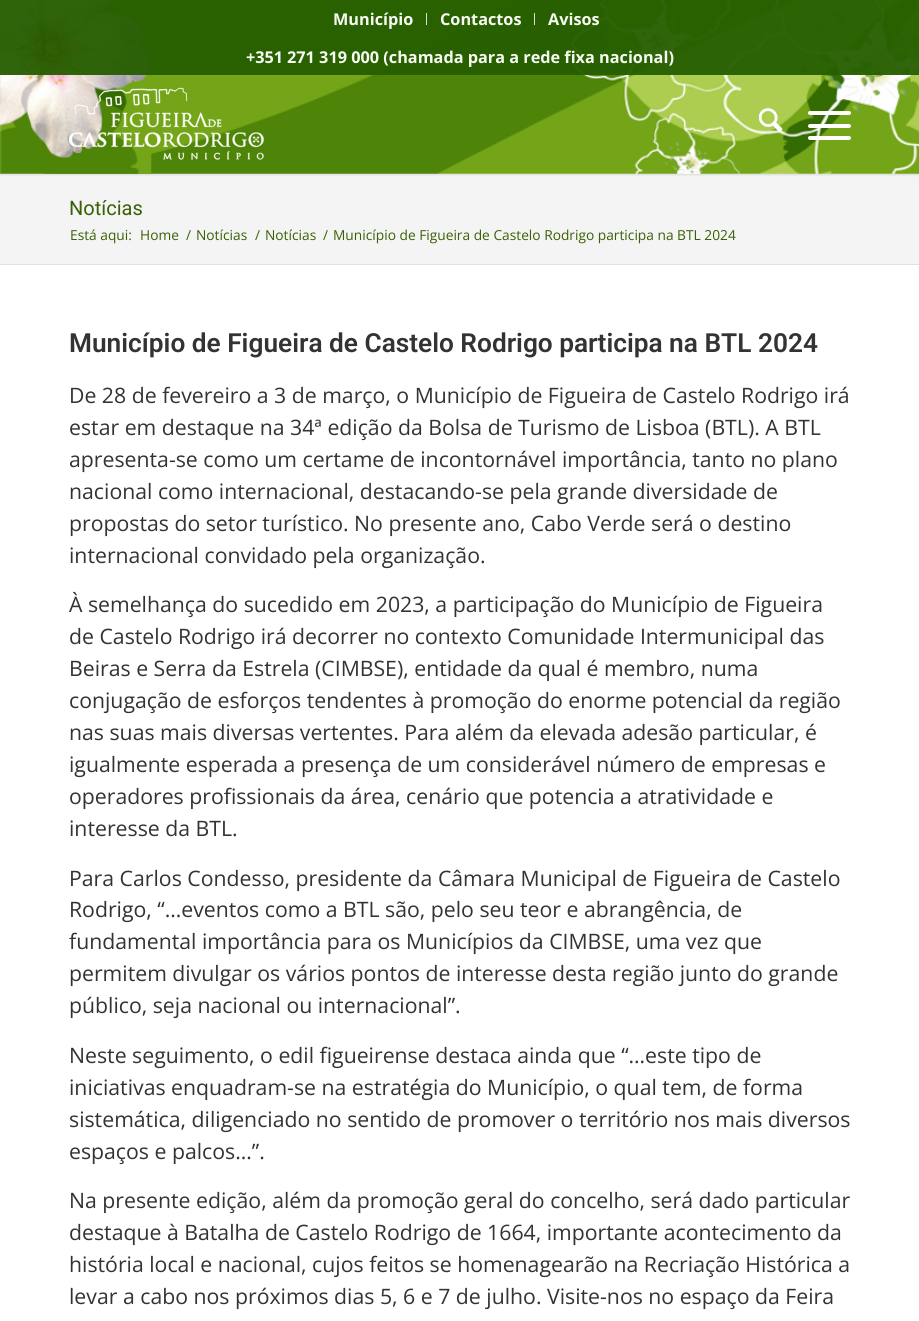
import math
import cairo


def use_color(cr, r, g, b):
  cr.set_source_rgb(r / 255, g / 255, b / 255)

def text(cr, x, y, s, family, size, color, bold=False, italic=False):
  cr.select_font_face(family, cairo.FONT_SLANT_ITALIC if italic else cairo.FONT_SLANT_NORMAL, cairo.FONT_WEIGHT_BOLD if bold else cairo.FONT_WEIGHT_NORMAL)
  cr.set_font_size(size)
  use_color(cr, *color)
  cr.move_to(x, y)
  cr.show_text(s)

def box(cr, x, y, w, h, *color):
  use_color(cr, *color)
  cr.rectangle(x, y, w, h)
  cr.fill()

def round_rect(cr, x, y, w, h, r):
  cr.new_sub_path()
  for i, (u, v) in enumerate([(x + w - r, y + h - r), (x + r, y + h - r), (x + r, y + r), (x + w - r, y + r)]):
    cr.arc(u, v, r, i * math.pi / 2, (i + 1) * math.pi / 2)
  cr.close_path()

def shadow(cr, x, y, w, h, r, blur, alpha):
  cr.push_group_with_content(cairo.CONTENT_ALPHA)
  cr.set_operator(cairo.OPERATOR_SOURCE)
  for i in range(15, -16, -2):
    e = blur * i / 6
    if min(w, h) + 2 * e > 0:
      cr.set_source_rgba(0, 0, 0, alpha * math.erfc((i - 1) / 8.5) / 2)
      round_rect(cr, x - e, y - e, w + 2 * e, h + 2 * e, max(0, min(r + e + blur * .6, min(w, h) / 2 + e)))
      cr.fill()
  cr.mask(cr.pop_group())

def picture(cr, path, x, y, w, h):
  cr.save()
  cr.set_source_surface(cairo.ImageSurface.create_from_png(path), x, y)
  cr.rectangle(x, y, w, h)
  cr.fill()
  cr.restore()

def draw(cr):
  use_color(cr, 255, 255, 255)
  cr.paint()
  box(cr, 0, 174, 919, 90, 244, 244, 244)
  use_color(cr, 0, 0, 0)
  shadow(cr, -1, -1, 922, 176, 0, 1, 0.1)
  picture(cr, "img_01.png", 0, 0, 919, 174)
  cr.set_source_rgba(0.149, 0.369, 0, 0.95)
  cr.rectangle(0, 0, 919, 75)
  cr.fill()
  box(cr, 426, 13, 1, 12, 220, 222, 215)
  box(cr, 534, 13, 1, 12, 218, 220, 214)
  picture(cr, "img_02.png", 69, 87, 195, 73)
  picture(cr, "img_03.png", 759, 108, 24, 24)
  use_color(cr, 255, 255, 255)
  round_rect(cr, 808, 124, 43, 4, 2)
  cr.fill()
  round_rect(cr, 808, 111, 43, 4, 2)
  cr.fill()
  round_rect(cr, 808, 136, 43, 4, 2)
  cr.fill()
  box(cr, 0, 264, 919, 1, 225, 225, 225)
  text(cr, 333, 25, "Município", "Open Sans", 16.25, (248, 251, 244), bold=True)
  text(cr, 440, 25, "Contactos", "Open Sans", 16.25, (248, 251, 244), bold=True)
  text(cr, 548, 25, "Avisos", "Open Sans", 16.25, (248, 251, 244), bold=True)
  text(cr, 246, 63, "+351", "Open Sans", 16.25, (248, 251, 244), bold=True)
  text(cr, 287, 63, "271 319 000 (chamada para a rede fixa nacional)", "Open Sans", 16.25, (248, 251, 244), bold=True)
  text(cr, 69, 215, "Notícias", "Roboto", 20, (57, 96, 6))
  text(cr, 70, 240, "Está aqui:", "Open Sans", 13.75, (57, 96, 6))
  text(cr, 140, 240, "Home", "Open Sans", 13.75, (57, 96, 6))
  text(cr, 186, 240, "/", "Open Sans", 13.75, (57, 96, 6))
  text(cr, 196, 240, "Notícias", "Open Sans", 13.75, (57, 96, 6))
  text(cr, 255, 240, "/", "Open Sans", 13.75, (57, 96, 6))
  text(cr, 265, 240, "Notícias", "Open Sans", 13.75, (57, 96, 6))
  text(cr, 323, 240, "/", "Open Sans", 13.75, (57, 96, 6))
  text(cr, 333, 240, "Município de Figueira de Castelo Rodrigo participa na BTL 2024", "Open Sans", 13.75, (57, 96, 6))
  text(cr, 69, 352, "Município de Figueira de Castelo Rodrigo participa na BTL 2024", "Roboto SemiBold", 26.25, (51, 51, 51))
  text(cr, 69, 403, "De 28 de fevereiro a 3 de março, o Município de Figueira de Castelo Rodrigo irá", "Open Sans", 21.25, (51, 51, 51))
  text(cr, 69, 435, "estar em destaque na 34ª edição da Bolsa de Turismo de Lisboa (BTL). A BTL", "Open Sans", 21.25, (51, 51, 51))
  text(cr, 69, 467, "apresenta-se como um certame de incontornável importância, tanto no plano", "Open Sans", 21.25, (51, 51, 51))
  text(cr, 69, 499, "nacional como internacional, destacando-se pela grande diversidade de", "Open Sans", 21.25, (51, 51, 51))
  text(cr, 69, 531, "propostas do setor turístico. No presente ano, Cabo Verde será o destino", "Open Sans", 21.25, (51, 51, 51))
  text(cr, 69, 563, "internacional convidado pela organização.", "Open Sans", 21.25, (51, 51, 51))
  text(cr, 69, 612, "À semelhança do sucedido em 2023, a participação do Município de Figueira", "Open Sans", 21.25, (51, 51, 51))
  text(cr, 69, 644, "de Castelo Rodrigo irá decorrer no contexto Comunidade Intermunicipal das", "Open Sans", 21.25, (51, 51, 51))
  text(cr, 69, 676, "Beiras e Serra da Estrela (CIMBSE), entidade da qual é membro, numa", "Open Sans", 21.25, (51, 51, 51))
  text(cr, 69, 708, "conjugação de esforços tendentes à promoção do enorme potencial da região", "Open Sans", 21.25, (51, 51, 51))
  text(cr, 69, 740, "nas suas mais diversas vertentes. Para além da elevada adesão particular, é", "Open Sans", 21.25, (51, 51, 51))
  text(cr, 69, 772, "igualmente esperada a presença de um considerável número de empresas e", "Open Sans", 21.25, (51, 51, 51))
  text(cr, 69, 804, "operadores profissionais da área, cenário que potencia a atratividade e", "Open Sans", 21.25, (51, 51, 51))
  text(cr, 69, 836, "interesse da BTL.", "Open Sans", 21.25, (51, 51, 51))
  text(cr, 69, 886, "Para Carlos Condesso, presidente da Câmara Municipal de Figueira de Castelo", "Open Sans", 21.25, (51, 51, 51))
  text(cr, 69, 917, "Rodrigo, “…eventos como a BTL são, pelo seu teor e abrangência, de", "Open Sans", 21.25, (51, 51, 51))
  text(cr, 69, 949, "fundamental importância para os Municípios da CIMBSE, uma vez que", "Open Sans", 21.25, (51, 51, 51))
  text(cr, 69, 981, "permitem divulgar os vários pontos de interesse desta região junto do grande", "Open Sans", 21.25, (51, 51, 51))
  text(cr, 69, 1013, "público, seja nacional ou internacional”.", "Open Sans", 21.25, (51, 51, 51))
  text(cr, 69, 1063, "Neste seguimento, o edil figueirense destaca ainda que “…este tipo de", "Open Sans", 21.25, (51, 51, 51))
  text(cr, 69, 1095, "iniciativas enquadram-se na estratégia do Município, o qual tem, de forma", "Open Sans", 21.25, (51, 51, 51))
  text(cr, 69, 1127, "sistemática, diligenciado no sentido de promover o território nos mais diversos", "Open Sans", 21.25, (51, 51, 51))
  text(cr, 69, 1159, "espaços e palcos…”.", "Open Sans", 21.25, (51, 51, 51))
  text(cr, 69, 1208, "Na presente edição, além da promoção geral do concelho, será dado particular", "Open Sans", 21.25, (51, 51, 51))
  text(cr, 69, 1240, "destaque à Batalha de Castelo Rodrigo de 1664, importante acontecimento da", "Open Sans", 21.25, (51, 51, 51))
  text(cr, 69, 1272, "história local e nacional, cujos feitos se homenagearão na Recriação Histórica a", "Open Sans", 21.25, (51, 51, 51))
  text(cr, 69, 1304, "levar a cabo nos próximos dias 5, 6 e 7 de julho. Visite-nos no espaço da Feira", "Open Sans", 21.25, (51, 51, 51))


surface = cairo.ImageSurface(cairo.FORMAT_RGB24, 919, 1321)
cr = cairo.Context(surface)
options = cairo.FontOptions()
options.set_hint_metrics(cairo.HINT_METRICS_OFF)
options.set_hint_style(cairo.HINT_STYLE_NONE)
cr.set_font_options(options)
cr.set_miter_limit(4)
draw(cr)
surface.write_to_png("out.png")
